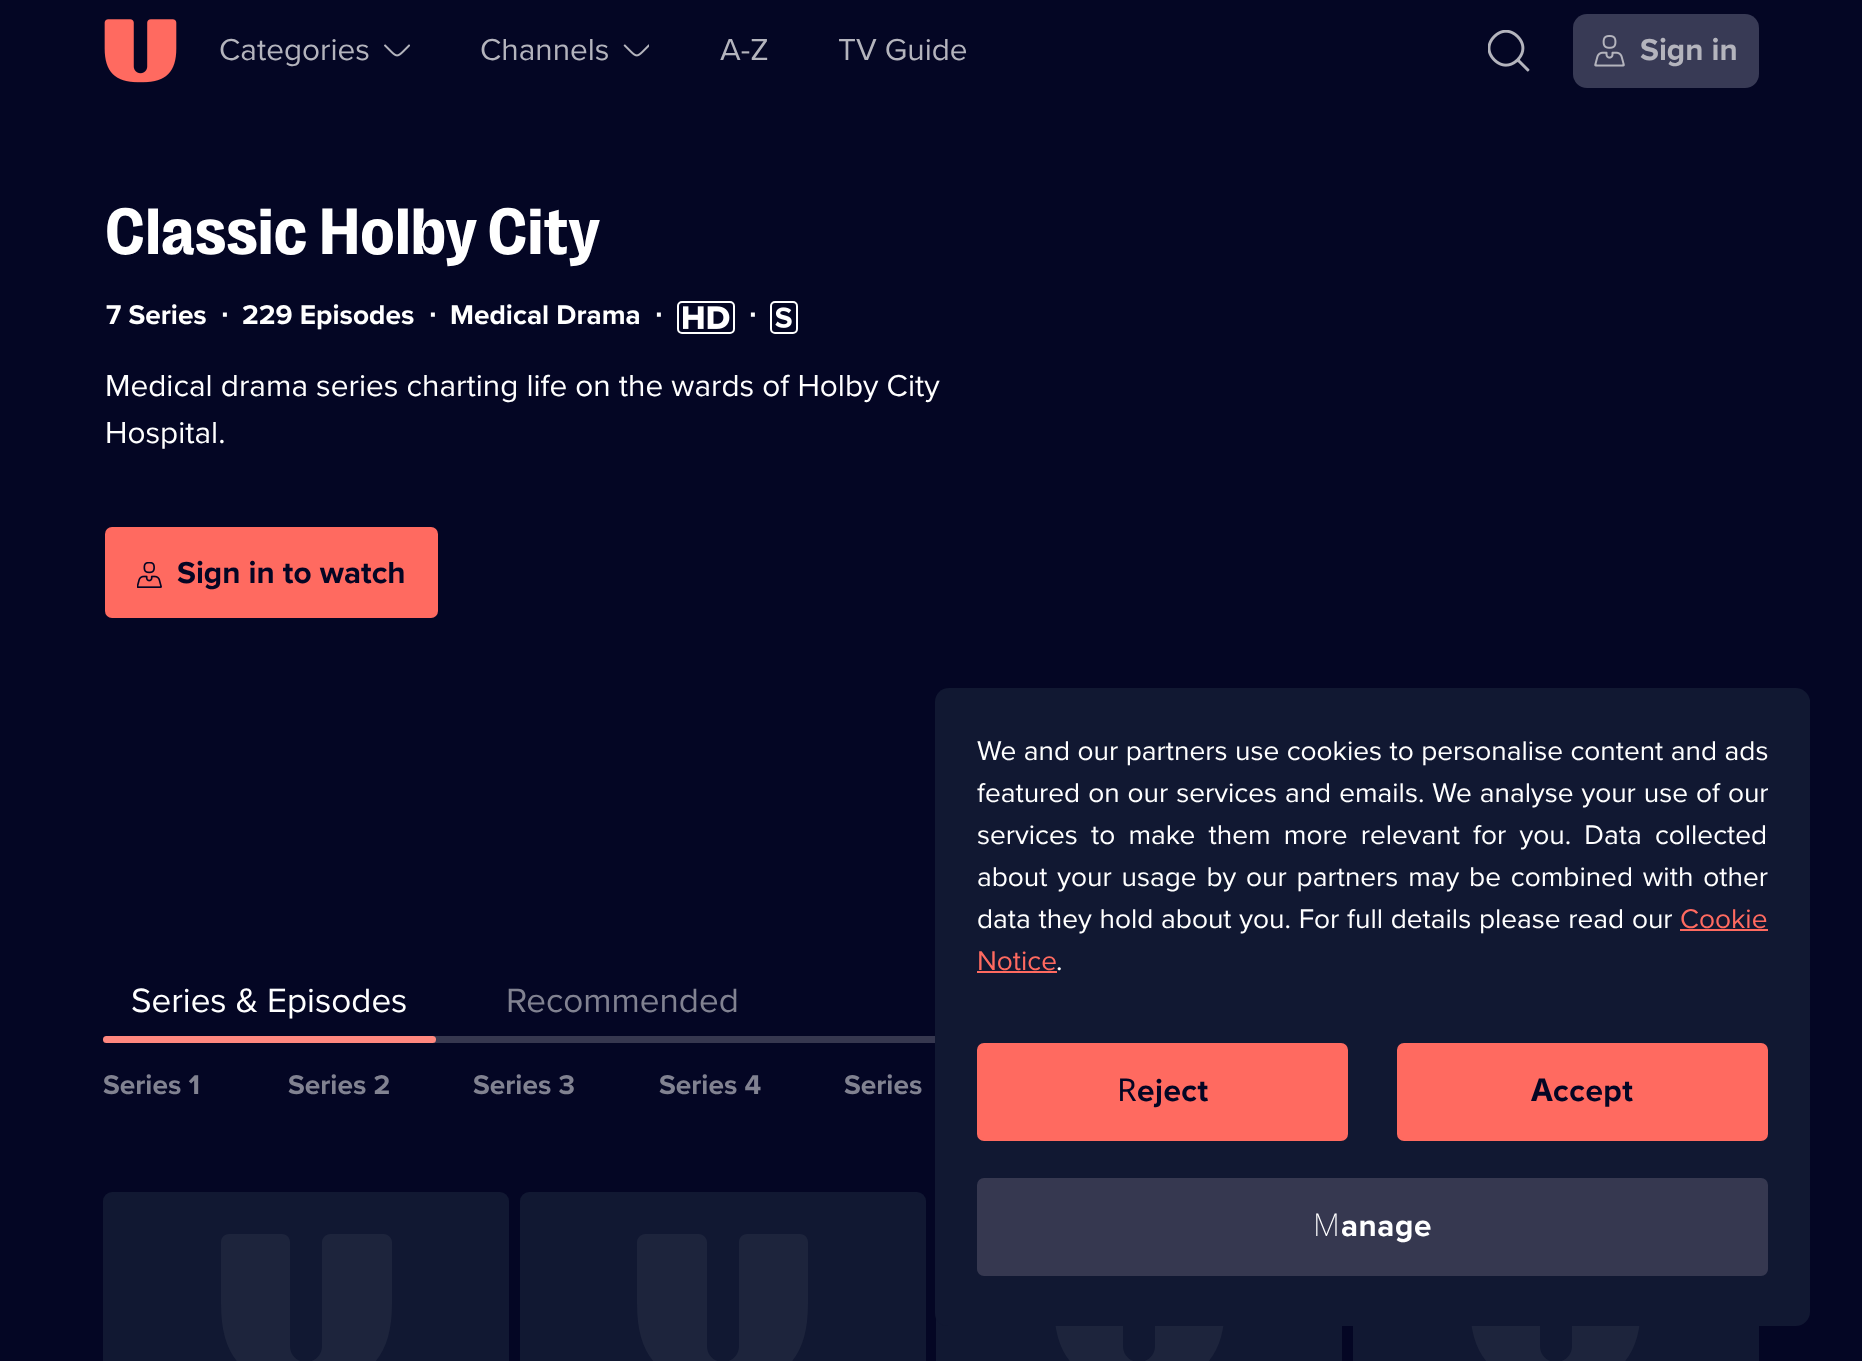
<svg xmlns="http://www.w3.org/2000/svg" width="1862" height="1361">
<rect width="100%" height="100%" fill="#040624"/>
<image x="104" y="19" width="73" height="64" href="media/1.png"/>
<text x="219" y="60" style="font-family:Proxima Nova;font-size:31.5px;fill:#b4b4bd">Categories</text>
<image x="384" y="44" width="26" height="13" href="media/2.png"/>
<text x="480" y="60" style="font-family:Proxima Nova;font-size:31.5px;fill:#b4b4bd">Channels</text>
<image x="623" y="44" width="26" height="13" href="media/3.png"/>
<text x="720" y="60" style="font-family:Proxima Nova;font-size:31.5px;fill:#b4b4bd">A-Z</text>
<text x="838" y="60" style="font-family:Proxima Nova;font-size:31.5px;fill:#b4b4bd">TV Guide</text>
<image x="1488" y="30" width="42" height="42" href="media/4.png"/>
<rect x="1573" y="14" width="186" height="74" rx="14" fill="#383a55"/>
<image x="1594" y="35" width="31" height="32" href="media/5.png"/>
<text x="1640" y="60" style="font-family:Proxima Nova;font-size:31.5px;font-weight:bold;fill:#b4b4bd">Sign in</text>
<text x="105" y="254" style="font-family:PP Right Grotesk;font-size:66.5px;font-weight:bold;fill:#fff">Classic Holby City</text>
<text x="106" y="324" style="font-family:Proxima Nova;font-size:28px;font-weight:bold;fill:#fff">7 Series</text>
<text x="221" y="324" style="font-family:Liberation Sans;font-size:28px;font-weight:bold;fill:#fff">∙</text>
<text x="242" y="324" style="font-family:Proxima Nova;font-size:28px;font-weight:bold;fill:#fff">229 Episodes</text>
<text x="429" y="324" style="font-family:Liberation Sans;font-size:28px;font-weight:bold;fill:#fff">∙</text>
<text x="450" y="324" style="font-family:Proxima Nova;font-size:28px;font-weight:bold;fill:#fff">Medical Drama</text>
<text x="655" y="324" style="font-family:Liberation Sans;font-size:28px;font-weight:bold;fill:#fff">∙</text>
<rect x="678" y="302" width="56" height="31" rx="4" fill="none" stroke="#fff" stroke-width="2"/>
<image x="683" y="306" width="47" height="23" href="media/6.png"/>
<text x="749" y="324" style="font-family:Liberation Sans;font-size:28px;font-weight:bold;fill:#fff">∙</text>
<rect x="771" y="302" width="26" height="31" rx="4" fill="none" stroke="#fff" stroke-width="2"/>
<image x="775" y="307" width="17" height="21" href="media/7.png"/>
<text x="105" y="396" style="font-family:Proxima Nova;font-size:31.5px;fill:#fff">Medical drama series charting life on the wards of Holby City</text>
<text x="105" y="443" style="font-family:Proxima Nova;font-size:31.5px;fill:#fff">Hospital.</text>
<rect x="105" y="527" width="333" height="91" rx="7" fill="#ff6a60"/>
<image x="137" y="562" width="25" height="26" href="media/8.png"/>
<text x="177" y="583" style="font-family:Proxima Nova;font-size:31.5px;font-weight:bold;fill:#040624">Sign in to watch</text>
<text x="131" y="1012" style="font-family:Proxima Nova;font-size:35px;fill:#fff">Series &amp; Episodes</text>
<rect x="103" y="1036" width="333" height="7" rx="3.5" fill="#ff6a60"/>
<text x="506" y="1012" style="font-family:Proxima Nova;font-size:35px;fill:#818291">Recommended</text>
<rect x="103" y="1036" width="1656" height="7" rx="3.5" fill="#ffffff33"/>
<text x="103" y="1094" style="font-family:Proxima Nova;font-size:28px;font-weight:bold;fill:#818291">Series 1</text>
<text x="288" y="1094" style="font-family:Proxima Nova;font-size:28px;font-weight:bold;fill:#818291">Series 2</text>
<text x="473" y="1094" style="font-family:Proxima Nova;font-size:28px;font-weight:bold;fill:#818291">Series 3</text>
<text x="659" y="1094" style="font-family:Proxima Nova;font-size:28px;font-weight:bold;fill:#818291">Series 4</text>
<text x="844" y="1094" style="font-family:Proxima Nova;font-size:28px;font-weight:bold;fill:#818291">Series</text>
<rect x="103" y="1192" width="406" height="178" rx="9" fill="#111832"/>
<path d="M229 1234h53c5 0 8 4 8 8v104c0 9 7 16 16 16c9 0 16-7 16-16v-104c0-4 4-8 8-8h54c4 0 8 4 8 8v62c0 55-25 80-80 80h-11c-56 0-80-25-80-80v-62c0-4 3-8 8-8z" fill="#1d243c"/>
<rect x="520" y="1192" width="406" height="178" rx="9" fill="#111832"/>
<path d="M645 1234h54c4 0 8 4 8 8v104c0 9 7 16 16 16c9 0 16-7 16-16v-104c0-4 3-8 8-8h53c5 0 8 4 8 8v62c0 55-24 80-80 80h-11c-55 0-80-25-80-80v-62c0-4 4-8 8-8z" fill="#1d243c"/>
<rect x="936" y="1318" width="406" height="43" fill="#111832"/>
<path d="M1062 1234h53c5 0 8 4 8 8v104c0 9 7 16 16 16c9 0 16-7 16-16v-104c0-4 4-8 8-8h54c4 0 8 4 8 8v62c0 55-25 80-80 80h-11c-56 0-80-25-80-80v-62c0-4 3-8 8-8z" fill="#1d243c"/>
<rect x="1353" y="1326" width="406" height="35" fill="#111832"/>
<path d="M1478 1234h54c4 0 8 4 8 8v104c0 9 7 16 16 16c9 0 16-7 16-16v-104c0-4 3-8 8-8h53c5 0 8 4 8 8v62c0 55-24 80-80 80h-11c-55 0-80-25-80-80v-62c0-4 4-8 8-8z" fill="#1d243c"/>
<path d="M949 688h847c6 0 11 4 13 9l1 3v612c0 8-7 14-14 14h-848c-3 0-7-1-9-3c-3-3-4-6-4-10v-611c0-8 6-14 14-14z" fill="#111832"/>
<text x="977" y="760" word-spacing="0.25" style="font-family:Proxima Nova;font-size:28px;fill:#fff">We and our partners use cookies to personalise content and ads</text>
<text x="977" y="802" word-spacing="0.75" style="font-family:Proxima Nova;font-size:28px;fill:#fff">featured on our services and emails. We analyse your use of our</text>
<text x="977" y="844" word-spacing="6" style="font-family:Proxima Nova;font-size:28px;fill:#fff">services to make them more relevant for you. Data collected</text>
<text x="977" y="886" word-spacing="2.6" style="font-family:Proxima Nova;font-size:28px;fill:#fff">about your usage by our partners may be combined with other</text>
<text x="977" y="928" word-spacing="0.5" style="font-family:Proxima Nova;font-size:28px;fill:#fff">data they hold about you. For full details please read our</text>
<text x="1680" y="928" style="font-family:Proxima Nova;font-size:28px;fill:#ff6a60">Cookie</text>
<rect x="1680" y="929" width="88" height="2" fill="#ff6a60"/>
<text x="977" y="970" style="font-family:Proxima Nova;font-size:28px;fill:#ff6a60">Notice</text>
<rect x="977" y="971" width="80" height="2" fill="#ff6a60"/>
<text x="1056" y="970" style="font-family:Proxima Nova;font-size:28px;fill:#fff">.</text>
<rect x="978" y="1044" width="369" height="96" rx="6" fill="#ff6a60" stroke="#ff6a60" stroke-width="2"/>
<text x="1117" y="1101" style="font-family:Noto Sans;font-size:31.5px;letter-spacing:0.5px;fill:#040624">R</text>
<text x="1137" y="1101" style="font-family:Proxima Nova;font-size:31.5px;font-weight:bold;letter-spacing:0.5px;fill:#040624">eject</text>
<rect x="1398" y="1044" width="369" height="96" rx="6" fill="#ff6a60" stroke="#ff6a60" stroke-width="2"/>
<text x="1531" y="1101" style="font-family:Noto Sans;font-size:31.5px;font-weight:bold;letter-spacing:0.5px;fill:#040624">A</text>
<text x="1553" y="1101" style="font-family:Proxima Nova;font-size:31.5px;font-weight:bold;letter-spacing:0.5px;fill:#040624">ccept</text>
<rect x="977" y="1178" width="791" height="98" rx="7" fill="#363850"/>
<text x="1313" y="1236" style="font-family:Noto Sans;font-size:31.5px;font-weight:200;letter-spacing:0.5px;fill:#fff">M</text>
<text x="1341" y="1236" style="font-family:Proxima Nova;font-size:31.5px;font-weight:bold;letter-spacing:0.5px;fill:#fff">anage</text>
</svg>
